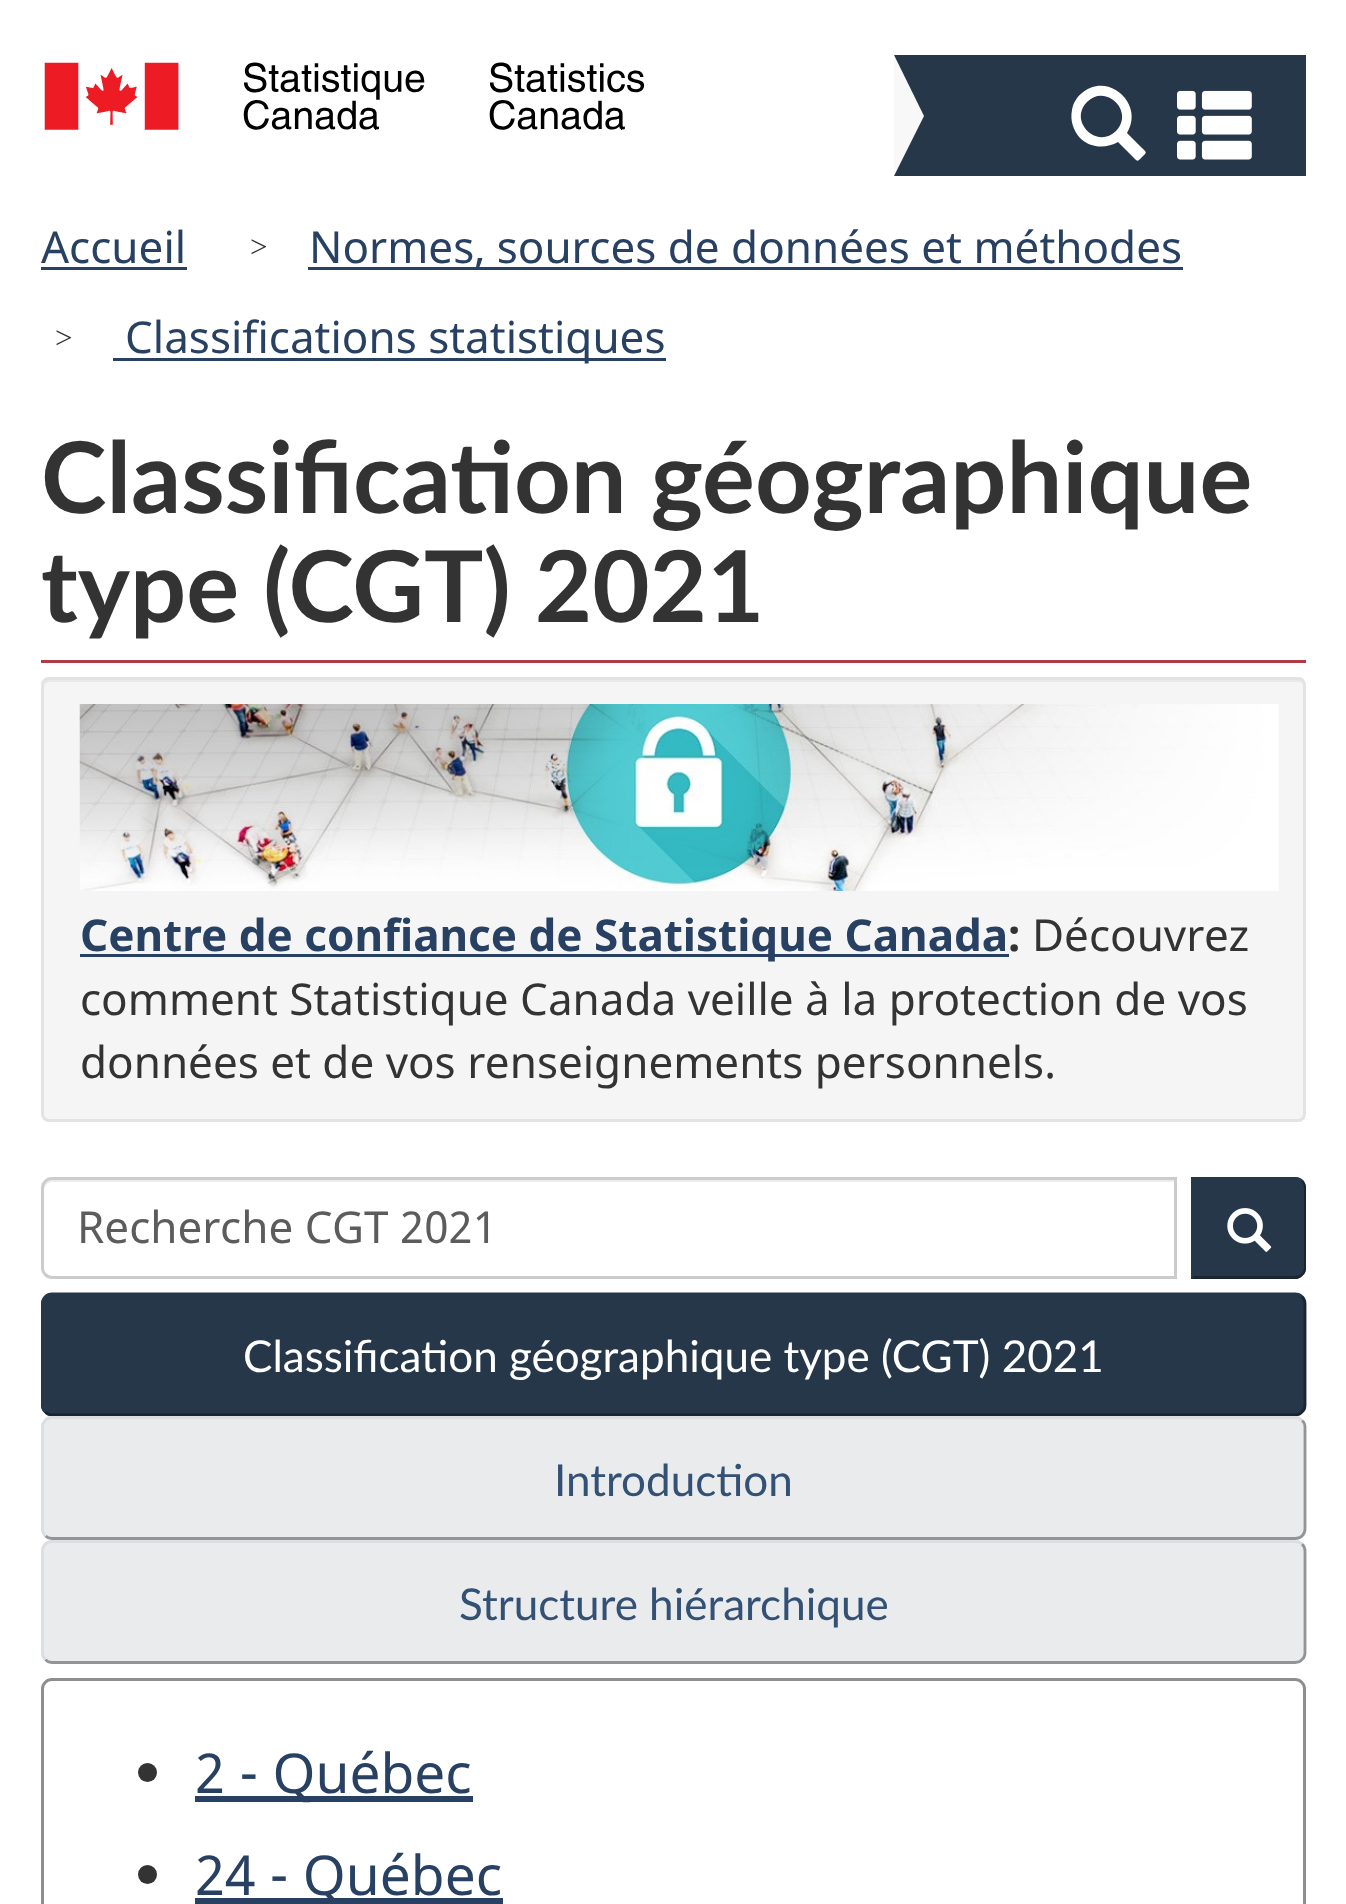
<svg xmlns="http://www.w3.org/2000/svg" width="1346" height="1904">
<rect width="100%" height="100%" fill="#fff"/>
<image x="44" y="62" width="601" height="68" href="media/1.png"/>
<rect x="894" y="55" width="412" height="121" fill="#26374a"/>
<path d="M894 176v-121l30 61z" fill="#f8f8f8"/>
<path d="M1080 138c-7-8-10-18-8-28c1-7 5-13 10-17c26-22 63 11 45 40l15 15c5 5 5 4 0 9c-5 5-4 5-9 0l-15-15c-12 7-28 6-38-4zm7-36c-19 19 10 48 29 29c19-19-10-48-29-29z" fill="#fff"/>
<image x="1177" y="90" width="75" height="70" href="media/2.png"/>
<text x="41" y="263" style="font-family:Noto Sans;font-size:44px;fill:#284162">Accueil</text>
<rect x="41" y="267" width="146" height="3" fill="#284162"/>
<text x="250" y="257" style="font-family:Liberation Serif;font-size:31px;fill:#333">&gt;</text>
<rect x="308" y="267" width="875" height="3" fill="#284162"/>
<text x="309" y="263" style="font-family:Noto Sans;font-size:44px;fill:#284162">Normes, sources de données et méthodes</text>
<text x="55" y="348" style="font-family:Liberation Serif;font-size:31px;fill:#333">&gt;</text>
<rect x="113" y="358" width="553" height="3" fill="#284162"/>
<text x="125" y="353" style="font-family:Noto Sans;font-size:44px;fill:#284162">Classifications statistiques</text>
<rect x="41" y="660" width="1265" height="3" fill="#af3c43"/>
<text x="41" y="513" style="font-family:Lato;font-size:99px;font-weight:bold;fill:#333">Classification géographique</text>
<text x="41" y="622" style="font-family:Lato;font-size:99px;font-weight:bold;fill:#333">type (CGT) 2021</text>
<rect x="41" y="677" width="1265" height="445" rx="8" fill="#f5f5f5"/>
<path d="M50 682h1248c3 0 6 2 6 6v-3c0-3-3-6-6-6h-1248c-3 0-6 3-6 6v3c0-4 2-6 6-6z" fill="#e9e9e9"/>
<rect x="42.5" y="678.5" width="1262" height="442" rx="6.5" fill="none" stroke="#e3e3e3" stroke-width="3"/>
<image x="79" y="704" width="1200" height="187" href="media/3.png"/>
<rect x="80" y="954" width="929" height="3" fill="#284162"/>
<text x="80" y="951" style="font-family:Noto Sans;font-size:44px;font-weight:bold;fill:#284162">Centre de confiance de Statistique Canada</text>
<text x="1008" y="951" style="font-family:Noto Sans;font-size:44px;font-weight:bold;fill:#333">:</text>
<text x="1032" y="951" style="font-family:Noto Sans;font-size:44px;fill:#333">Découvrez</text>
<text x="80" y="1015" style="font-family:Noto Sans;font-size:44px;fill:#333">comment Statistique Canada veille à la protection de vos</text>
<text x="80" y="1078" style="font-family:Noto Sans;font-size:44px;fill:#333">données et de vos renseignements personnels.</text>
<path d="M52 1182h1122v-2h-1122c-4 0-8 4-8 8v3c0-5 4-9 8-9z" fill="#ececec"/>
<path d="M52 1178.5h1123.5v99h-1123.5c-5 0-9.5-4.5-9.5-9.5v-80c0-5 4.5-9.5 9.5-9.5z" fill="none" stroke="#ccc" stroke-width="3"/>
<text x="77" y="1243" style="font-family:Noto Sans;font-size:44px;fill:#5c5c5c">Recherche CGT 2021</text>
<path d="M1191 1177h104c6 0 11 5 11 11v80c0 6-5 11-11 11h-104z" fill="#26374a"/>
<path d="M1191 1177l3 3h101c2 0 5 1 6 2l2-2c-2-2-5-3-8-3z" fill="#26374a"/>
<path d="M1303 1180c2 2 3 5 3 8v80c0 3-1 6-3 7l-2-1c2-2 3-4 3-6v-80c0-3-1-5-3-6z" fill="#192531"/>
<path d="M1191 1279l3-3h101c2 0 5-1 6-2l2 1c-2 2-3 3-6 4z" fill="#192531"/>
<path d="M1191 1177v101l3-2v-96z" fill="#26374a"/>
<image x="1227" y="1208" width="45" height="44" href="media/4.png"/>
<rect x="41" y="1293" width="1265" height="123" rx="11" fill="#26374a"/>
<path d="M1302 1296.5c2 2 3 4.5 3 7v101.5c0 3-1 5.5-3 7c-1.5 2-4 3-7 3h-1243c-2.5 0-5-1-6.5-3" fill="none" stroke="#192531" stroke-width="2.8"/>
<path d="M45.5 1412c-2-1.5-3-4-3-7v-101.5c0-2.5 1-5 3-7c1.5-1.5 4-2.5 6.5-2.5h1243c3 0 5.5 1 7 2.5" fill="none" stroke="#26374a" stroke-width="2.8"/>
<text x="243" y="1372" style="font-family:Lato;font-size:44px;fill:#fff">Classification géographique type (CGT) 2021</text>
<rect x="41" y="1416" width="1265" height="124" rx="11" fill="#eaebed"/>
<path d="M1302 1420.5c2 1.5 3 4 3 6.5v102c0 2.5-1 5-3 7c-1.5 1.5-4 2.5-7 2.5h-1243c-2.5 0-5-1-6.5-2.5" fill="none" stroke="#939496" stroke-width="2.8"/>
<path d="M45.5 1536c-2-2-3-4.5-3-7v-102c0-2.5 1-5 3-6.5c1.5-2 4-3 6.5-3h1243c3 0 5.5 1 7 3" fill="none" stroke="#dcdee1" stroke-width="2.8"/>
<text x="554" y="1496" style="font-family:Lato;font-size:44px;fill:#335075">Introduction</text>
<rect x="41" y="1540" width="1265" height="124" rx="11" fill="#eaebed"/>
<path d="M1302 1544c2 2 3 4.5 3 7v102c0 2.5-1 5-3 6.5c-1.5 2-4 3-7 3h-1243c-2.5 0-5-1-6.5-3" fill="none" stroke="#939496" stroke-width="2.8"/>
<path d="M45.5 1659.5c-2-1.5-3-4-3-6.5v-102c0-2.5 1-5 3-7c1.5-1.5 4-2.5 6.5-2.5h1243c3 0 5.5 1 7 2.5" fill="none" stroke="#dcdee1" stroke-width="2.8"/>
<text x="459" y="1620" style="font-family:Lato;font-size:44px;fill:#335075">Structure hiérarchique</text>
<rect x="42.5" y="1679.5" width="1262" height="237" rx="9.5" fill="none" stroke="#8e8e8e" stroke-width="3"/>
<circle cx="147.5" cy="1772.5" r="9.5" fill="#333"/>
<rect x="195" y="1796" width="278" height="6" fill="#284162"/>
<text x="195" y="1793" style="font-family:Noto Sans;font-size:55px;fill:#284162">2 - Québec</text>
<circle cx="147.5" cy="1874.5" r="9.5" fill="#333"/>
<rect x="195" y="1898" width="308" height="6" fill="#284162"/>
<text x="195" y="1895" style="font-family:Noto Sans;font-size:55px;fill:#284162">24 - Québec</text>
</svg>
